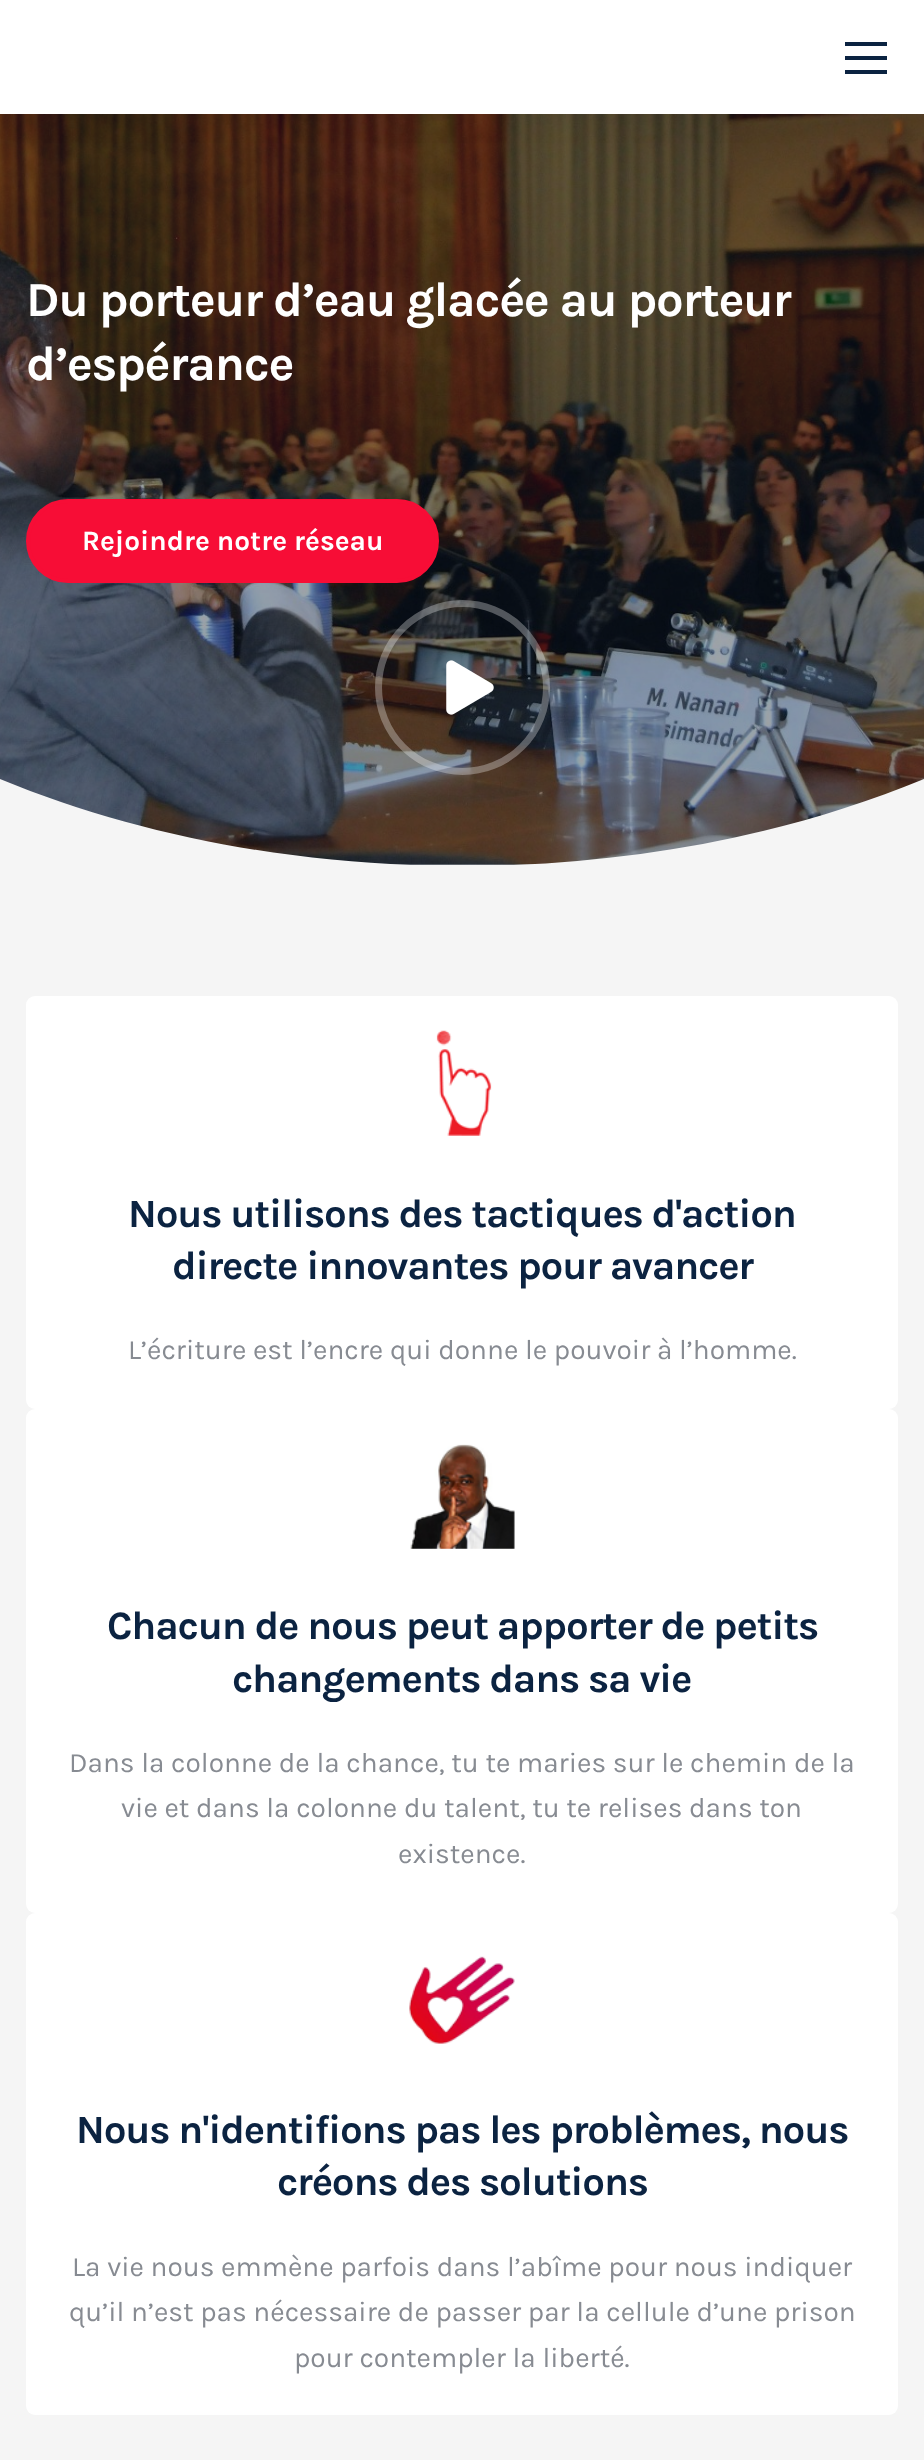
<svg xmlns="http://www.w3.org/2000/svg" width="924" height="2460">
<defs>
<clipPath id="clip1"><rect y="779" width="924" height="86"/></clipPath>
</defs>
<rect width="100%" height="100%" fill="#f5f5f5"/>
<rect x="389" y="864" width="146" height="1" fill="#979da4"/>
<image x="0" y="114" width="924" height="751" href="media/1.png"/>
<rect width="924" height="114" fill="#0000000d" filter="blur(17.5px)"/>
<rect width="924" height="114" fill="#fff"/>
<rect x="845" y="70" width="42" height="4" fill="#0b2341"/>
<rect x="845" y="42" width="42" height="4" fill="#0b2341"/>
<rect x="845" y="56" width="42" height="4" fill="#0b2341"/>
<text x="26" y="316" style="font-family:Karla;font-size:49px;font-weight:bold;letter-spacing:-1.3px;fill:#fff">Du porteur d’eau glacée au porteur</text>
<text x="26" y="380" style="font-family:Karla;font-size:49px;font-weight:bold;letter-spacing:-1.3px;fill:#fff">d’espérance</text>
<rect x="28" y="501" width="409" height="80" rx="40" fill="#f70d36" stroke="#f70d36" stroke-width="4"/>
<text x="82" y="550" style="font-family:Karla;font-size:28px;font-weight:bold;fill:#fff">Rejoindre notre réseau</text>
<circle cx="462.5" cy="687.5" r="84" fill="none" stroke="#ffffff4d" stroke-width="7"/>
<image x="446" y="660" width="48" height="55" href="media/2.png"/>
<g clip-path="url(#clip1)">
<path d="M0 866v-87c280 116 644 116 924 0v87z" fill="#f5f5f5"/>
</g>
<rect x="26" y="996" width="872" height="413" rx="9" fill="#fff"/>
<image x="436" y="1030" width="56" height="106" href="media/3.png"/>
<text x="128" y="1227" style="font-family:Karla;font-size:40.25px;font-weight:bold;letter-spacing:-1.2px;fill:#0b2341">Nous utilisons des tactiques d'action</text>
<text x="172" y="1279" style="font-family:Karla;font-size:40.25px;font-weight:bold;letter-spacing:-1.2px;fill:#0b2341">directe innovantes pour avancer</text>
<text x="128" y="1359" style="font-family:Karla;font-size:28px;fill:#878b92">L’écriture est l’encre qui donne le pouvoir à l’homme.</text>
<rect x="26" y="1409" width="872" height="504" rx="9" fill="#fff"/>
<image x="410" y="1444" width="105" height="105" href="media/4.png"/>
<text x="107" y="1639" style="font-family:Karla;font-size:40.25px;font-weight:bold;letter-spacing:-1.2px;fill:#0b2341">Chacun de nous peut apporter de petits</text>
<text x="232" y="1692" style="font-family:Karla;font-size:40.25px;font-weight:bold;letter-spacing:-1.2px;fill:#0b2341">changements dans sa vie</text>
<text x="69" y="1772" style="font-family:Karla;font-size:28px;fill:#878b92">Dans la colonne de la chance, tu te maries sur le chemin de la</text>
<text x="121" y="1817" style="font-family:Karla;font-size:28px;fill:#878b92">vie et dans la colonne du talent, tu te relises dans ton</text>
<text x="398" y="1863" style="font-family:Karla;font-size:28px;fill:#878b92">existence.</text>
<rect x="26" y="1913" width="872" height="502" rx="9" fill="#fff"/>
<image x="409" y="1956" width="106" height="88" href="media/5.png"/>
<text x="76" y="2143" style="font-family:Karla;font-size:40.25px;font-weight:bold;letter-spacing:-1.2px;fill:#0b2341">Nous n'identifions pas les problèmes, nous</text>
<text x="277" y="2195" style="font-family:Karla;font-size:40.25px;font-weight:bold;letter-spacing:-1.2px;fill:#0b2341">créons des solutions</text>
<text x="72" y="2276" style="font-family:Karla;font-size:28px;fill:#878b92">La vie nous emmène parfois dans l’abîme pour nous indiquer</text>
<text x="69" y="2321" style="font-family:Karla;font-size:28px;fill:#878b92">qu’il n’est pas nécessaire de passer par la cellule d’une prison</text>
<text x="294" y="2367" style="font-family:Karla;font-size:28px;fill:#878b92">pour contempler la liberté.</text>
</svg>
